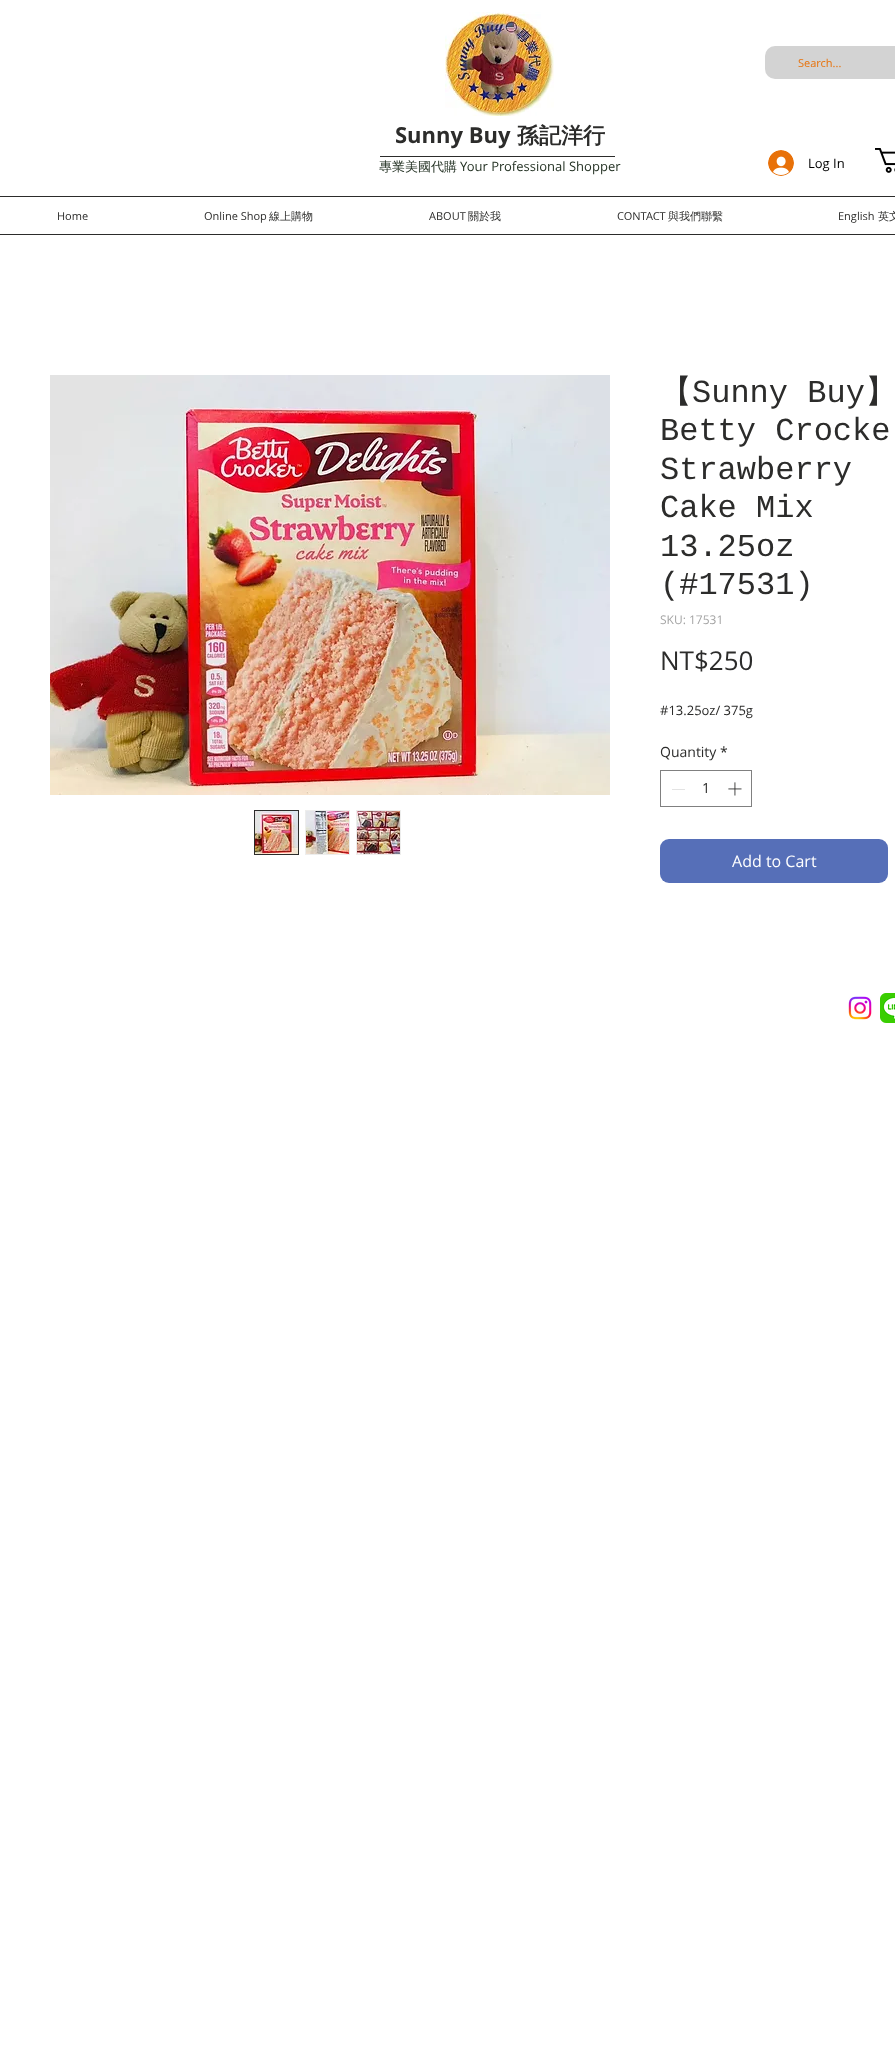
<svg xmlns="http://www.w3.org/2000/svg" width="895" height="2049">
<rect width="100%" height="100%" fill="#fff"/>
<image x="445" y="12" width="109" height="104" href="media/1.png"/>
<rect x="765" y="46" width="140" height="33" rx="10" fill="#d3d3d3"/>
<text x="798" y="67" style="font-family:Open Sans;font-size:11px;fill:#e87109">Search...</text>
<text x="395" y="143" style="font-family:Open Sans;font-size:22px;font-weight:bold;fill:#2c2c2b">Sunny Buy</text>
<text x="517" y="143" style="font-family:WenQuanYi Zen Hei;font-size:22px;font-weight:bold;fill:#2c2c2b">孫記洋行</text>
<rect x="380" y="156" width="235" height="1" fill="#2c2c2b"/>
<image x="875" y="148" width="20" height="25" href="media/2.png"/>
<text x="379" y="171" style="font-family:WenQuanYi Zen Hei;font-size:13px;font-weight:500;fill:#253325">專業美國代購</text>
<text x="460" y="171" style="font-family:Open Sans;font-size:13px;fill:#253325">Your Professional Shopper</text>
<image x="768" y="150" width="26" height="26" href="media/3.png"/>
<text x="808" y="168" style="font-family:Open Sans;font-size:13px;fill:#000">Log In</text>
<rect y="196" width="895" height="1" fill="#2c2c2b"/>
<rect y="234" width="895" height="1" fill="#2c2c2b"/>
<text x="57" y="220" style="font-family:Open Sans;font-size:11px;fill:#2c2c2b">Home</text>
<text x="204" y="220" style="font-family:Open Sans;font-size:11px;fill:#2c2c2b">Online Shop</text>
<text x="269" y="220" style="font-family:WenQuanYi Zen Hei;font-size:11px;font-weight:500;fill:#2c2c2b">線上購物</text>
<text x="429" y="220" style="font-family:Open Sans;font-size:11px;fill:#2c2c2b">ABOUT</text>
<text x="468" y="220" style="font-family:WenQuanYi Zen Hei;font-size:11px;font-weight:500;fill:#2c2c2b">關於我</text>
<text x="617" y="220" style="font-family:Open Sans;font-size:11px;fill:#2c2c2b">CONTACT</text>
<text x="668" y="220" style="font-family:WenQuanYi Zen Hei;font-size:11px;font-weight:500;fill:#2c2c2b">與我們聯繫</text>
<text x="838" y="220" style="font-family:Open Sans;font-size:11px;fill:#2c2c2b">English</text>
<text x="878" y="220" style="font-family:WenQuanYi Zen Hei;font-size:11px;font-weight:500;fill:#2c2c2b">英文</text>
<image x="50" y="375" width="560" height="420" href="media/4.png"/>
<rect x="254.5" y="810.5" width="44" height="44" fill="none" stroke="#2c2c2b"/>
<image x="255" y="811" width="43" height="43" href="media/5.png"/>
<rect x="305" y="810" width="45" height="45" fill="#ededec"/>
<image x="306" y="811" width="43" height="43" href="media/6.png"/>
<rect x="356" y="810" width="45" height="45" fill="#ededec"/>
<image x="357" y="811" width="43" height="43" href="media/7.png"/>
<text x="660" y="402" style="font-family:WenQuanYi Zen Hei;font-size:32px;font-weight:500;fill:#2c2c2b">【</text>
<text x="692" y="402" style="font-family:Liberation Mono;font-size:32px;fill:#2c2c2b">Sunny Buy</text>
<text x="865" y="402" style="font-family:WenQuanYi Zen Hei;font-size:32px;font-weight:500;fill:#2c2c2b">】</text>
<text x="660" y="440" style="font-family:Liberation Mono;font-size:32px;fill:#2c2c2b">Betty Crocke</text>
<text x="660" y="479" style="font-family:Liberation Mono;font-size:32px;fill:#2c2c2b">Strawberry</text>
<text x="660" y="517" style="font-family:Liberation Mono;font-size:32px;fill:#2c2c2b">Cake Mix</text>
<text x="660" y="556" style="font-family:Liberation Mono;font-size:32px;fill:#2c2c2b">13.25oz</text>
<text x="660" y="594" style="font-family:Liberation Mono;font-size:32px;fill:#2c2c2b">(#17531)</text>
<text x="660" y="624" style="font-family:Open Sans;font-size:12px;fill:#a4a4a4">SKU: 17531</text>
<text x="660" y="670" style="font-family:Open Sans;font-size:26px;fill:#2c2c2b">NT$250</text>
<text x="660" y="715" style="font-family:Open Sans;font-size:13px;fill:#2c2c2b">#13.25oz/ 375g</text>
<text x="660" y="757" style="font-family:Open Sans;font-size:14px;fill:#2c2c2b">Quantity</text>
<text x="720" y="757" style="font-family:Open Sans;font-size:14px;fill:#2c2c2b">*</text>
<rect x="660.5" y="770.5" width="91" height="36" fill="none" stroke="#808080"/>
<rect x="672" y="789" width="13" height="1" fill="#e3e3e3"/>
<text x="702" y="793" style="font-family:Open Sans;font-size:14px;fill:#2c2c2b">1</text>
<image x="728" y="782" width="14" height="14" href="media/8.png"/>
<rect x="660" y="839" width="228" height="44" rx="9" fill="#566fb8"/>
<text x="732" y="867" style="font-family:Open Sans;font-size:16px;fill:#fff">Add to Cart</text>
<image x="848" y="996" width="24" height="24" href="media/9.png"/>
<image x="880" y="993" width="15" height="30" href="media/10.png"/>
</svg>
